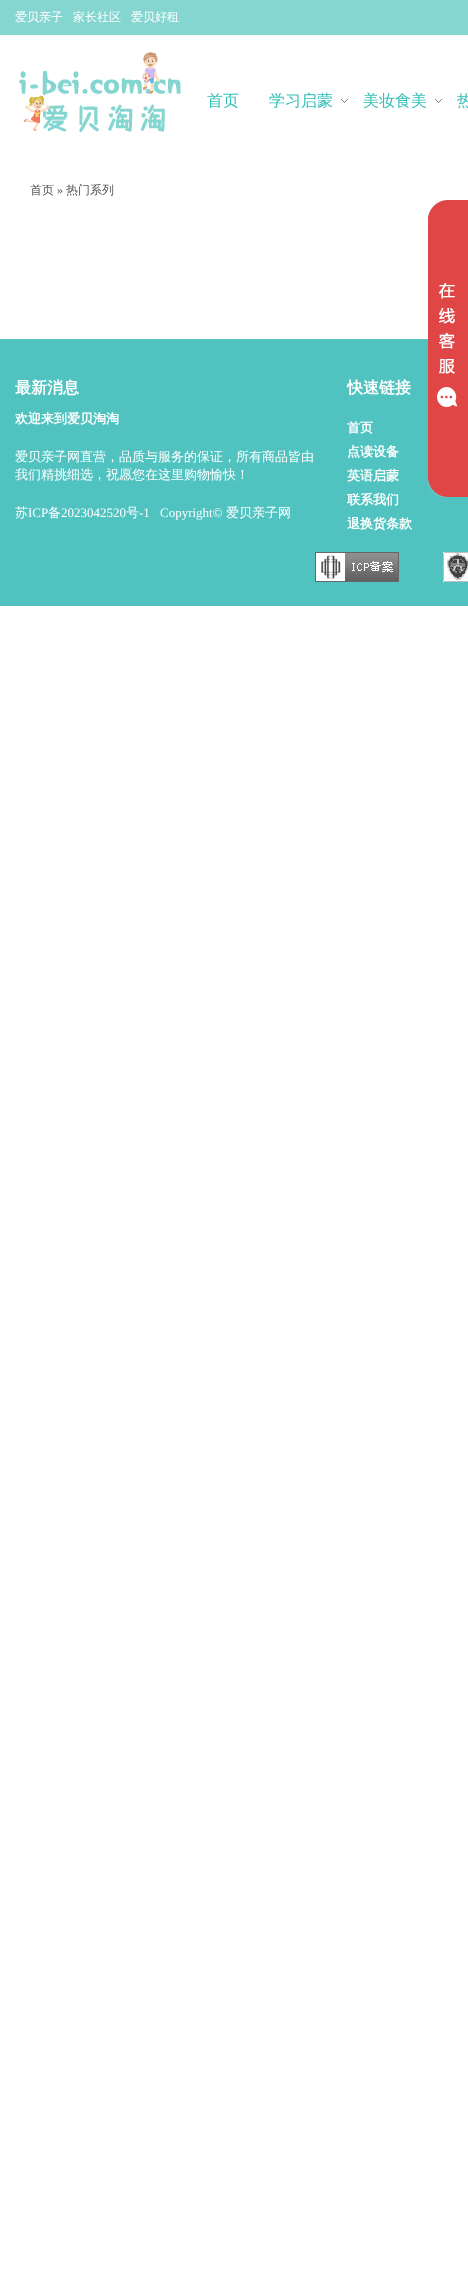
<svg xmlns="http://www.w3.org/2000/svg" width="468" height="2286">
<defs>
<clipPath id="clip1"><rect x="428" y="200" width="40" height="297"/></clipPath>
</defs>
<rect width="100%" height="100%" fill="#fff"/>
<rect width="468" height="35" fill="#85d5d0"/>
<text x="15" y="21" style="font-family:WenQuanYi Zen Hei;font-size:12px;font-weight:500;fill:#fff">爱贝亲子</text>
<text x="73" y="21" style="font-family:WenQuanYi Zen Hei;font-size:12px;font-weight:500;fill:#fff">家长社区</text>
<text x="131" y="21" style="font-family:WenQuanYi Zen Hei;font-size:12px;font-weight:500;fill:#fff">爱贝好租</text>
<image x="19" y="52" width="162" height="81" href="media/1.png"/>
<text x="207" y="106" style="font-family:WenQuanYi Zen Hei;font-size:16px;font-weight:500;fill:#35bfb7">首页</text>
<image x="341" y="99" width="7" height="4" href="media/2.png"/>
<text x="269" y="106" style="font-family:WenQuanYi Zen Hei;font-size:16px;font-weight:500;fill:#35bfb7">学习启蒙</text>
<image x="435" y="99" width="7" height="4" href="media/2.png"/>
<text x="363" y="106" style="font-family:WenQuanYi Zen Hei;font-size:16px;font-weight:500;fill:#35bfb7">美妆食美</text>
<text x="457" y="106" style="font-family:WenQuanYi Zen Hei;font-size:16px;font-weight:500;fill:#35bfb7">热</text>
<text x="30" y="194" style="font-family:WenQuanYi Zen Hei;font-size:12px;font-weight:500;fill:#545454">首页</text>
<text x="57" y="194" style="font-family:Liberation Serif;font-size:12px;fill:#545454">»</text>
<text x="66" y="194" style="font-family:WenQuanYi Zen Hei;font-size:12px;font-weight:500;fill:#545454">热门系列</text>
<rect y="339" width="468" height="267" fill="#50c3c0"/>
<text x="15" y="393" style="font-family:WenQuanYi Zen Hei;font-size:16px;font-weight:bold;fill:#fff">最新消息</text>
<text x="15" y="423" style="font-family:WenQuanYi Zen Hei;font-size:13px;font-weight:bold;fill:#fff">欢迎来到爱贝淘淘</text>
<text x="15" y="461" style="font-family:WenQuanYi Zen Hei;font-size:13px;font-weight:500;fill:#fff">爱贝亲子网直营，品质与服务的保证，所有商品皆由</text>
<text x="15" y="479" style="font-family:WenQuanYi Zen Hei;font-size:13px;font-weight:500;fill:#fff">我们精挑细选，祝愿您在这里购物愉快！</text>
<text x="15" y="517" style="font-family:WenQuanYi Zen Hei;font-size:13px;font-weight:500;fill:#fff">苏</text>
<text x="28" y="517" style="font-family:Liberation Serif;font-size:13px;fill:#fff">ICP</text>
<text x="48" y="517" style="font-family:WenQuanYi Zen Hei;font-size:13px;font-weight:500;fill:#fff">备</text>
<text x="61" y="517" style="font-family:Liberation Serif;font-size:13px;fill:#fff">2023042520</text>
<text x="126" y="517" style="font-family:WenQuanYi Zen Hei;font-size:13px;font-weight:500;fill:#fff">号</text>
<text x="139" y="517" style="font-family:Liberation Serif;font-size:13px;fill:#fff">-1</text>
<text x="160" y="517" style="font-family:Liberation Serif;font-size:13px;fill:#fff">Copyright©</text>
<text x="226" y="517" style="font-family:WenQuanYi Zen Hei;font-size:13px;font-weight:500;fill:#fff">爱贝亲子网</text>
<text x="347" y="393" style="font-family:WenQuanYi Zen Hei;font-size:16px;font-weight:bold;fill:#fff">快速链接</text>
<text x="347" y="432" style="font-family:WenQuanYi Zen Hei;font-size:13px;font-weight:bold;fill:#fff">首页</text>
<text x="347" y="456" style="font-family:WenQuanYi Zen Hei;font-size:13px;font-weight:bold;fill:#fff">点读设备</text>
<text x="347" y="480" style="font-family:WenQuanYi Zen Hei;font-size:13px;font-weight:bold;fill:#fff">英语启蒙</text>
<text x="347" y="504" style="font-family:WenQuanYi Zen Hei;font-size:13px;font-weight:bold;fill:#fff">联系我们</text>
<text x="347" y="528" style="font-family:WenQuanYi Zen Hei;font-size:13px;font-weight:bold;fill:#fff">退换货条款</text>
<image x="315" y="552" width="84" height="30" href="media/3.png"/>
<image x="443" y="552" width="25" height="30" href="media/4.png"/>
<g clip-path="url(#clip1)">
<rect x="428" y="200" width="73" height="297" rx="25" fill="#e4e8ec" filter="blur(2.5px)"/>
</g>
<image x="428" y="200" width="40" height="297" href="media/5.png"/>
</svg>
